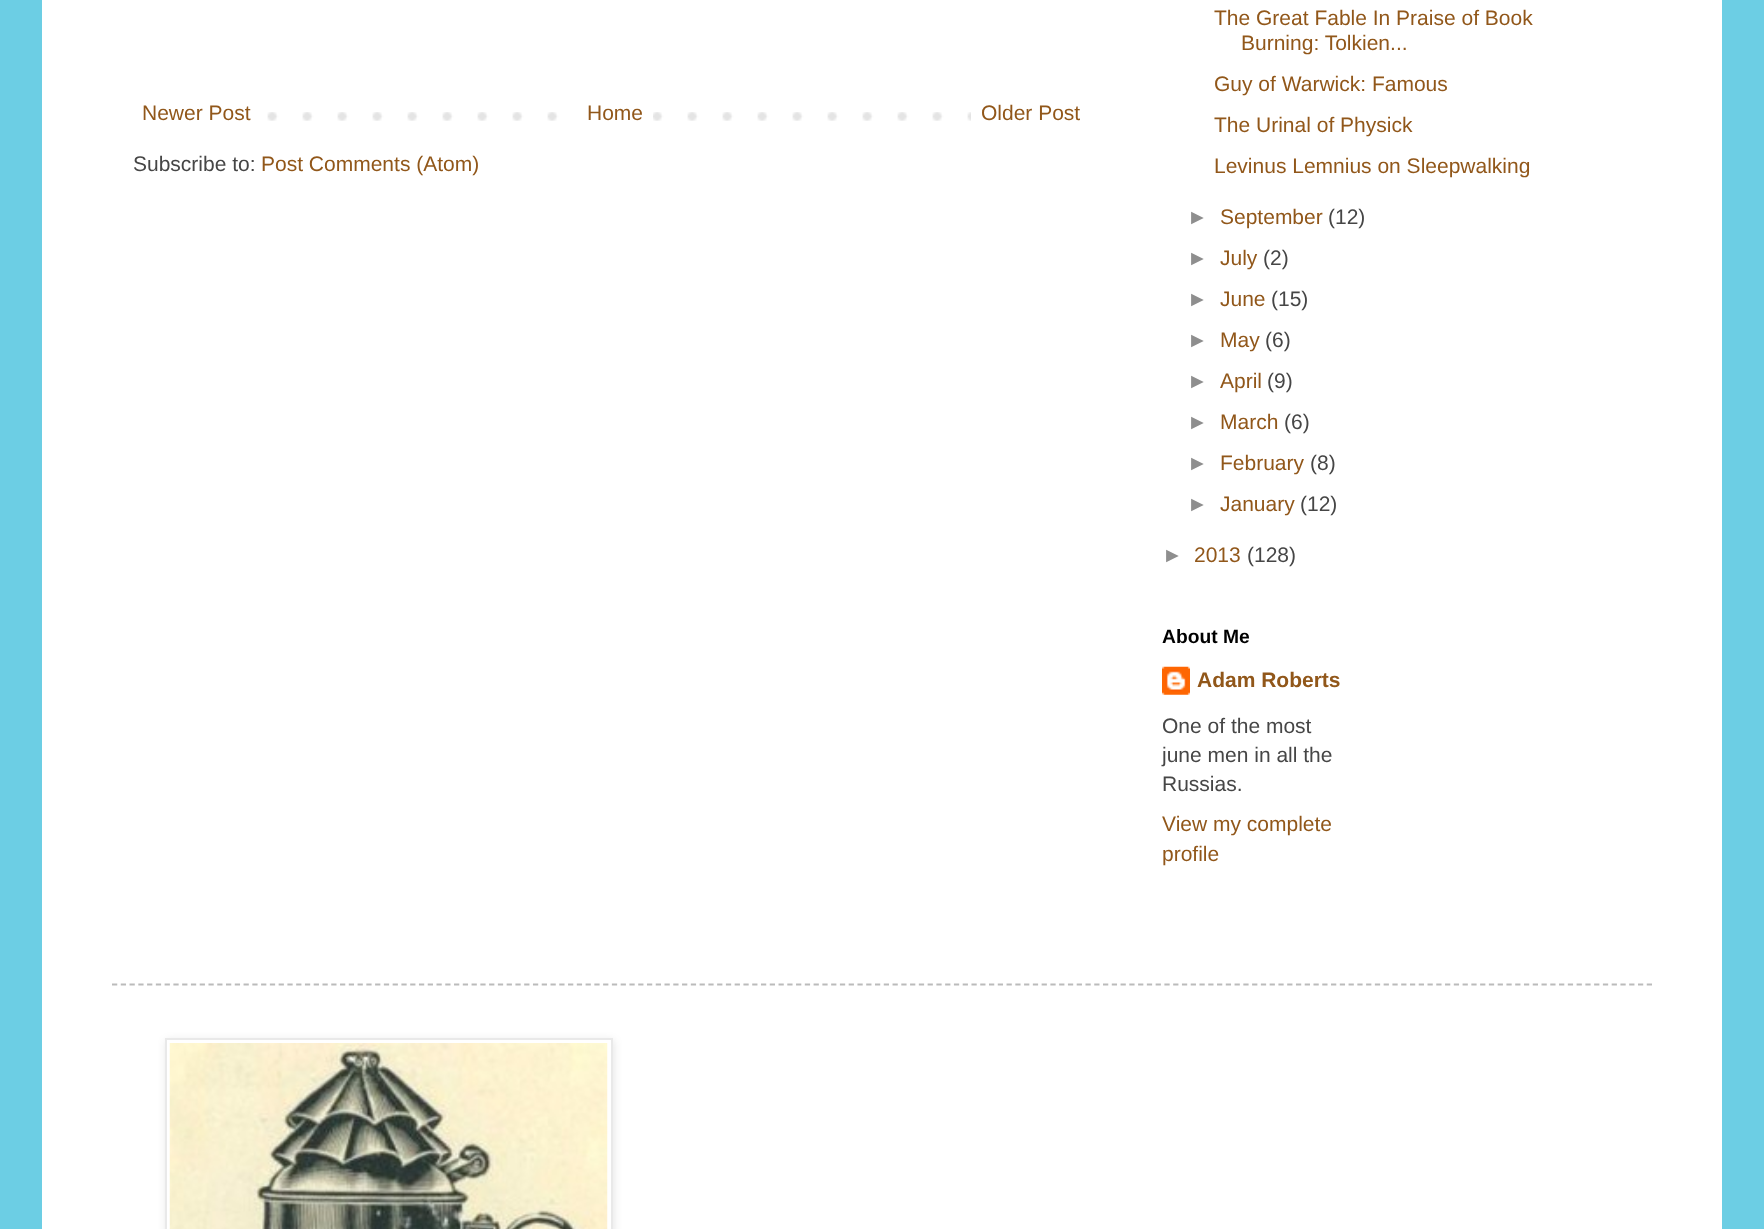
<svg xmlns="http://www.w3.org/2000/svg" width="1764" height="1229">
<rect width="100%" height="100%" fill="#6ccee4"/>
<rect x="42" width="1680" height="1229" fill="#fff"/>
<image x="267" y="112" width="704" height="9" href="media/1.png"/>
<text x="142" y="120" style="font-family:Liberation Sans;font-size:21px;fill:#91571a">Newer Post</text>
<rect x="582" y="112" width="71" height="9" fill="#fff"/>
<text x="587" y="120" style="font-family:Liberation Sans;font-size:21px;fill:#91571a">Home</text>
<text x="981" y="120" style="font-family:Liberation Sans;font-size:21px;fill:#91571a">Older Post</text>
<text x="133" y="171" style="font-family:Liberation Sans;font-size:21px;fill:#464646">Subscribe to:</text>
<text x="261" y="171" style="font-family:Liberation Sans;font-size:21px;fill:#91571a">Post Comments (Atom)</text>
<text x="1214" y="25" style="font-family:Liberation Sans;font-size:21px;fill:#91571a">The Great Fable In Praise of Book</text>
<text x="1241" y="50" style="font-family:Liberation Sans;font-size:21px;fill:#91571a">Burning: Tolkien...</text>
<text x="1214" y="91" style="font-family:Liberation Sans;font-size:21px;fill:#91571a">Guy of Warwick: Famous</text>
<text x="1214" y="132" style="font-family:Liberation Sans;font-size:21px;fill:#91571a">The Urinal of Physick</text>
<text x="1214" y="173" style="font-family:Liberation Sans;font-size:21px;fill:#91571a">Levinus Lemnius on Sleepwalking</text>
<text x="1187" y="224" style="font-family:Liberation Sans;font-size:21px;fill:#8e8e8e">►</text>
<text x="1220" y="224" style="font-family:Liberation Sans;font-size:21px;fill:#91571a">September</text>
<text x="1328" y="224" style="font-family:Liberation Sans;font-size:21px;fill:#464646">(12)</text>
<text x="1187" y="265" style="font-family:Liberation Sans;font-size:21px;fill:#8e8e8e">►</text>
<text x="1220" y="265" style="font-family:Liberation Sans;font-size:21px;fill:#91571a">July</text>
<text x="1263" y="265" style="font-family:Liberation Sans;font-size:21px;fill:#464646">(2)</text>
<text x="1187" y="306" style="font-family:Liberation Sans;font-size:21px;fill:#8e8e8e">►</text>
<text x="1220" y="306" style="font-family:Liberation Sans;font-size:21px;fill:#91571a">June</text>
<text x="1271" y="306" style="font-family:Liberation Sans;font-size:21px;fill:#464646">(15)</text>
<text x="1187" y="347" style="font-family:Liberation Sans;font-size:21px;fill:#8e8e8e">►</text>
<text x="1220" y="347" style="font-family:Liberation Sans;font-size:21px;fill:#91571a">May</text>
<text x="1265" y="347" style="font-family:Liberation Sans;font-size:21px;fill:#464646">(6)</text>
<text x="1187" y="388" style="font-family:Liberation Sans;font-size:21px;fill:#8e8e8e">►</text>
<text x="1220" y="388" style="font-family:Liberation Sans;font-size:21px;fill:#91571a">April</text>
<text x="1267" y="388" style="font-family:Liberation Sans;font-size:21px;fill:#464646">(9)</text>
<text x="1187" y="429" style="font-family:Liberation Sans;font-size:21px;fill:#8e8e8e">►</text>
<text x="1220" y="429" style="font-family:Liberation Sans;font-size:21px;fill:#91571a">March</text>
<text x="1284" y="429" style="font-family:Liberation Sans;font-size:21px;fill:#464646">(6)</text>
<text x="1187" y="470" style="font-family:Liberation Sans;font-size:21px;fill:#8e8e8e">►</text>
<text x="1220" y="470" style="font-family:Liberation Sans;font-size:21px;fill:#91571a">February</text>
<text x="1310" y="470" style="font-family:Liberation Sans;font-size:21px;fill:#464646">(8)</text>
<text x="1187" y="511" style="font-family:Liberation Sans;font-size:21px;fill:#8e8e8e">►</text>
<text x="1220" y="511" style="font-family:Liberation Sans;font-size:21px;fill:#91571a">January</text>
<text x="1300" y="511" style="font-family:Liberation Sans;font-size:21px;fill:#464646">(12)</text>
<text x="1162" y="562" style="font-family:Liberation Sans;font-size:21px;fill:#8e8e8e">►</text>
<text x="1194" y="562" style="font-family:Liberation Sans;font-size:21px;fill:#91571a">2013</text>
<text x="1247" y="562" style="font-family:Liberation Sans;font-size:21px;fill:#464646">(128)</text>
<text x="1162" y="643" style="font-family:Liberation Sans;font-size:19.25px;font-weight:bold;fill:#000">About Me</text>
<image x="1162" y="666" width="28" height="29" href="media/2.png"/>
<text x="1197" y="687" style="font-family:Liberation Sans;font-size:21px;font-weight:bold;fill:#91571a">Adam Roberts</text>
<text x="1162" y="733" style="font-family:Liberation Sans;font-size:21px;fill:#464646">One of the most</text>
<text x="1162" y="762" style="font-family:Liberation Sans;font-size:21px;fill:#464646">june men in all the</text>
<text x="1162" y="791" style="font-family:Liberation Sans;font-size:21px;fill:#464646">Russias.</text>
<text x="1162" y="831" style="font-family:Liberation Sans;font-size:21px;fill:#91571a">View my complete</text>
<text x="1162" y="861" style="font-family:Liberation Sans;font-size:21px;fill:#91571a">profile</text>
<path d="M112 984.5h1540" fill="none" stroke="#bbb" stroke-width="1.8" stroke-dasharray="5.25 3.52"/>
<rect x="166" y="1040" width="448" height="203" fill="#0000001a" filter="blur(4.5px)"/>
<rect x="166" y="1039" width="446" height="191" fill="#fff" stroke="#e9e9e9" stroke-width="2"/>
<image x="169" y="1043" width="439" height="186" href="media/3.png"/>
</svg>
